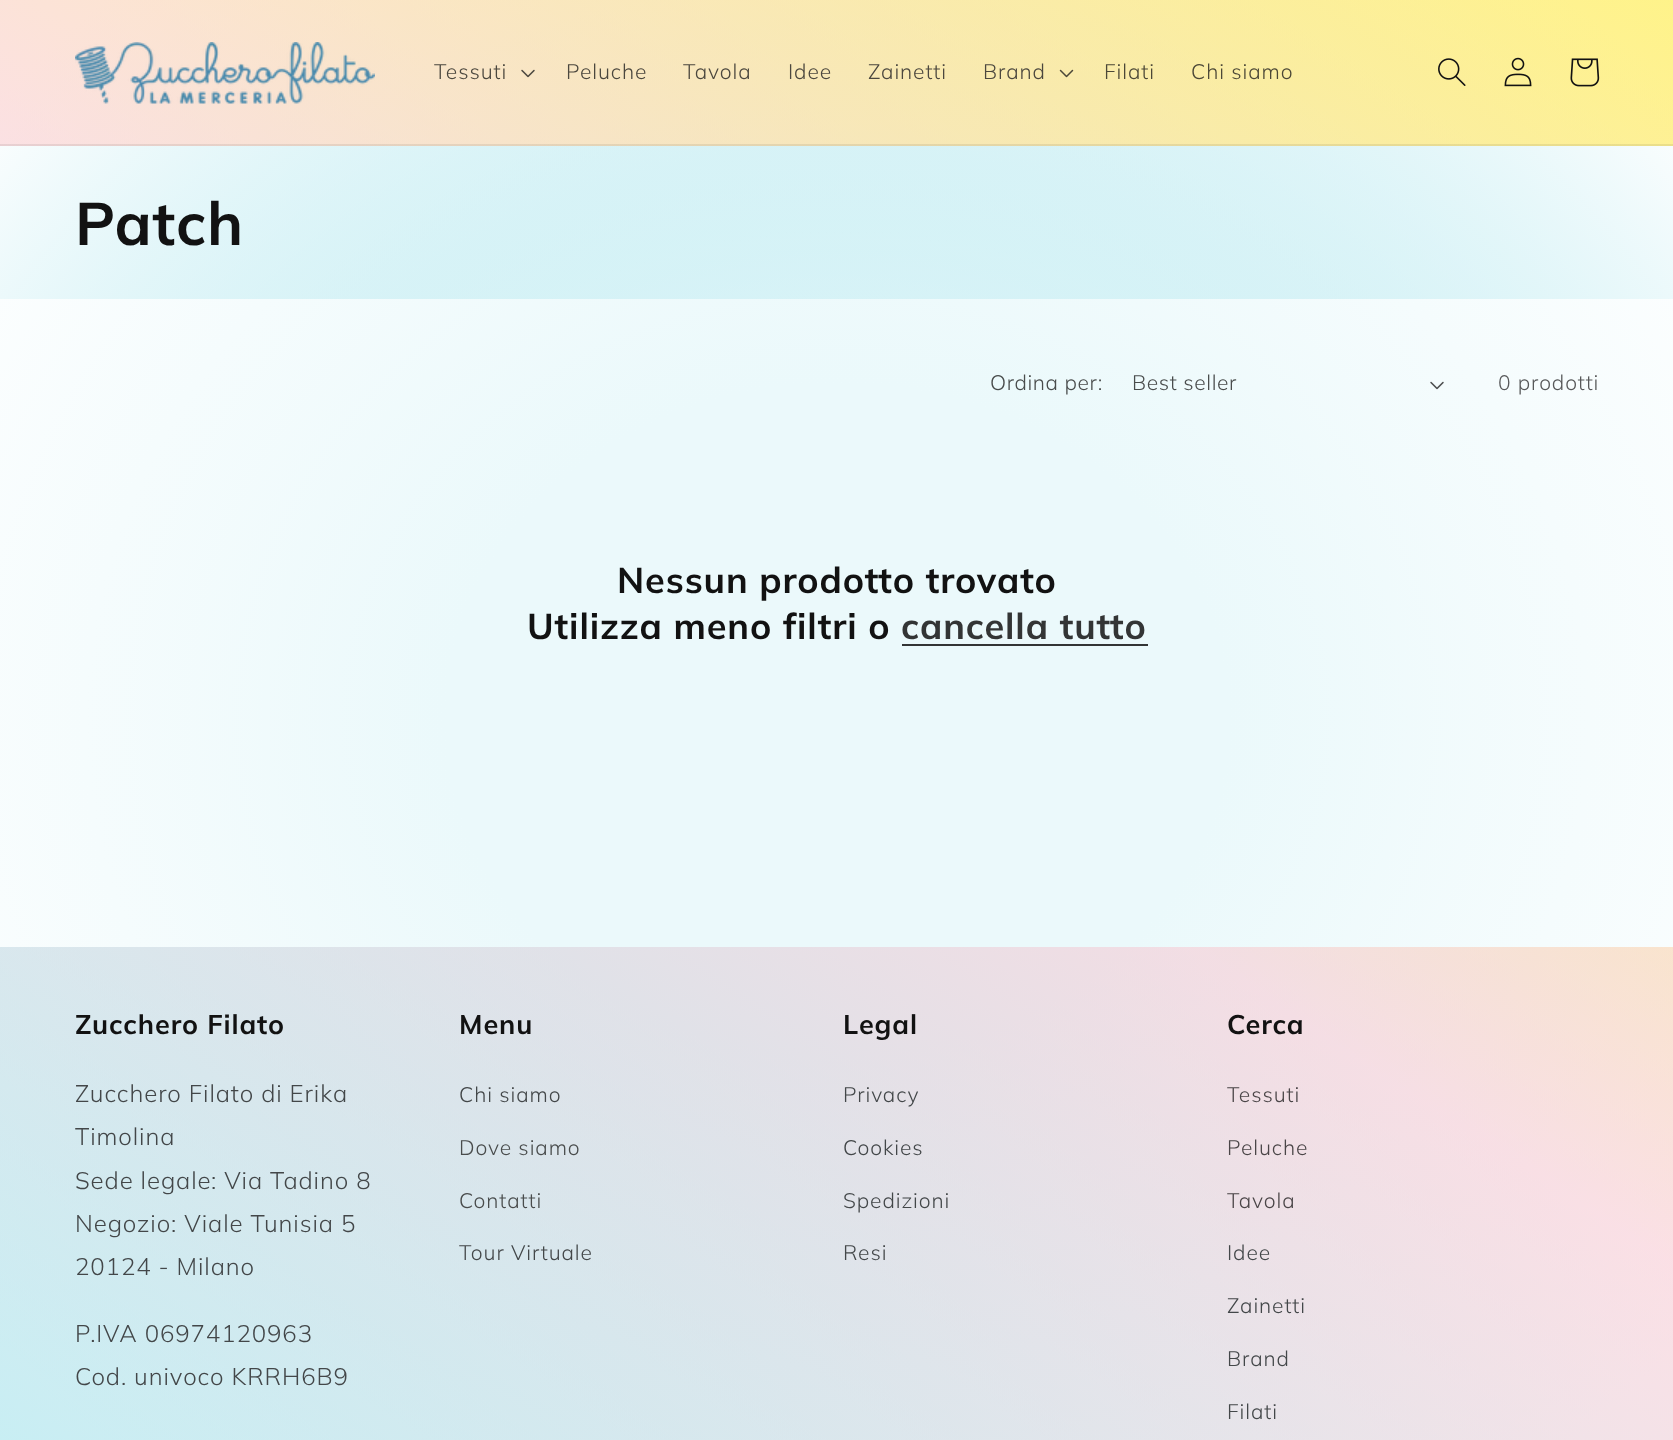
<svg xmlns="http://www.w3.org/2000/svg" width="1673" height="1440">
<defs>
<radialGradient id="g1" gradientUnits="userSpaceOnUse" cx="0" cy="0" r="1" gradientTransform="matrix(1184 0 0 1018 837 720)"><stop offset="0.33" stop-color="#ebf9fb"/><stop offset="0.94" stop-color="#fff"/></radialGradient>
<linearGradient id="g2" gradientUnits="userSpaceOnUse" x1="260" y1="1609" x2="1414" y2="-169"><stop offset="0" stop-color="#91dde8" stop-opacity="0.5"/><stop offset="0.5" stop-color="#f8c1cc" stop-opacity="0.5"/><stop offset="1" stop-color="#fee715" stop-opacity="0.5"/></linearGradient>
<radialGradient id="g3" gradientUnits="userSpaceOnUse" cx="0" cy="0" r="1" gradientTransform="matrix(1184 0 0 1018 837 720)"><stop offset="0.33" stop-color="#91dde8" stop-opacity="0.19"/><stop offset="0.94" stop-color="#fff"/></radialGradient>
</defs>
<rect width="100%" height="100%" fill="#fff"/>
<rect width="1673" height="1440" fill="url(#g1)"/>
<rect width="1673" height="146" fill="url(#g2)"/>
<rect y="144" width="1673" height="2" fill="#12121214"/>
<image x="75" y="42" width="300" height="62" href="media/1.png"/>
<text x="434" y="79" style="font-family:Muli;font-size:21px;font-weight:300;letter-spacing:0.9px;fill:#4b473e">Tessuti</text>
<image x="521" y="69" width="14" height="9" href="media/2.png"/>
<text x="566" y="79" style="font-family:Muli;font-size:21px;font-weight:300;letter-spacing:0.9px;fill:#4b473e">Peluche</text>
<text x="683" y="79" style="font-family:Muli;font-size:21px;font-weight:300;letter-spacing:0.9px;fill:#4b473e">Tavola</text>
<text x="788" y="79" style="font-family:Muli;font-size:21px;font-weight:300;letter-spacing:0.9px;fill:#4b473e">Idee</text>
<text x="868" y="79" style="font-family:Muli;font-size:21px;font-weight:300;letter-spacing:0.9px;fill:#4b473e">Zainetti</text>
<text x="983" y="79" style="font-family:Muli;font-size:21px;font-weight:300;letter-spacing:0.9px;fill:#4b473e">Brand</text>
<image x="1059" y="69" width="15" height="9" href="media/3.png"/>
<text x="1104" y="79" style="font-family:Muli;font-size:21px;font-weight:300;letter-spacing:0.9px;fill:#4c4837">Filati</text>
<text x="1191" y="79" style="font-family:Muli;font-size:21px;font-weight:300;letter-spacing:0.9px;fill:#4c4837">Chi siamo</text>
<image x="1438" y="58" width="28" height="28" href="media/4.png"/>
<image x="1504" y="57" width="28" height="30" href="media/5.png"/>
<image x="1570" y="58" width="30" height="29" href="media/6.png"/>
<rect y="146" width="1673" height="153" fill="url(#g3)"/>
<text x="75" y="245" style="font-family:Muli;font-size:60px;font-weight:bold;letter-spacing:0.9px;fill:#121212">Patch</text>
<text x="990" y="390" style="font-family:Muli;font-size:21px;font-weight:300;letter-spacing:0.6px;fill:#494c4c">Ordina per:</text>
<text x="1132" y="390" style="font-family:Muli;font-size:21px;font-weight:300;letter-spacing:0.6px;fill:#494c4c">Best seller</text>
<image x="1430" y="381" width="14" height="9" href="media/7.png"/>
<text x="1498" y="390" style="font-family:Muli;font-size:21px;font-weight:300;letter-spacing:0.9px;fill:#575859">0 prodotti</text>
<text x="617" y="593" style="font-family:Muli;font-size:36px;font-weight:bold;letter-spacing:0.9px;fill:#121212">Nessun prodotto trovato</text>
<text x="527" y="639" style="font-family:Muli;font-size:36px;font-weight:bold;letter-spacing:0.9px;fill:#121212">Utilizza meno filtri o</text>
<text x="901" y="639" style="font-family:Muli;font-size:36px;font-weight:bold;letter-spacing:0.9px;fill:#333535">cancella tutto</text>
<rect x="902" y="644" width="246" height="2" fill="#333535"/>
<rect y="947" width="1673" height="493" fill="url(#g2)"/>
<text x="75" y="1034" style="font-family:Muli;font-size:27px;font-weight:bold;letter-spacing:0.9px;fill:#121212">Zucchero Filato</text>
<text x="75" y="1102" style="font-family:Muli;font-size:24px;font-weight:300;letter-spacing:0.9px;fill:#434749">Zucchero Filato di Erika</text>
<text x="75" y="1145" style="font-family:Muli;font-size:24px;font-weight:300;letter-spacing:0.9px;fill:#434749">Timolina</text>
<text x="75" y="1189" style="font-family:Muli;font-size:24px;font-weight:300;letter-spacing:0.9px;fill:#434749">Sede legale</text>
<text x="211" y="1189" style="font-family:Muli;font-size:24px;font-weight:300;letter-spacing:0.9px;fill:#434749">: Via Tadino 8</text>
<text x="75" y="1232" style="font-family:Muli;font-size:24px;font-weight:300;letter-spacing:0.9px;fill:#434749">Negozio: Viale Tunisia 5</text>
<text x="75" y="1275" style="font-family:Muli;font-size:24px;font-weight:300;letter-spacing:0.9px;fill:#434749">20124 - Milano</text>
<text x="75" y="1342" style="font-family:Muli;font-size:24px;font-weight:300;letter-spacing:0.9px;fill:#434749">P.IVA 06974120963</text>
<text x="75" y="1385" style="font-family:Muli;font-size:24px;font-weight:300;letter-spacing:0.9px;fill:#434749">Cod. univoco KRRH6B9</text>
<text x="459" y="1034" style="font-family:Muli;font-size:27px;font-weight:bold;letter-spacing:0.9px;fill:#121212">Menu</text>
<text x="459" y="1102" style="font-family:Muli;font-size:21px;font-weight:300;letter-spacing:0.9px;fill:#434749">Chi siamo</text>
<text x="459" y="1155" style="font-family:Muli;font-size:21px;font-weight:300;letter-spacing:0.9px;fill:#494c4c">Dove siamo</text>
<text x="459" y="1208" style="font-family:Muli;font-size:21px;font-weight:300;letter-spacing:0.9px;fill:#494c4c">Contatti</text>
<text x="459" y="1260" style="font-family:Muli;font-size:21px;font-weight:300;letter-spacing:0.9px;fill:#434749">Tour Virtuale</text>
<text x="843" y="1034" style="font-family:Muli;font-size:27px;font-weight:bold;letter-spacing:0.9px;fill:#121212">Legal</text>
<text x="843" y="1102" style="font-family:Muli;font-size:21px;font-weight:300;letter-spacing:0.9px;fill:#434749">Privacy</text>
<text x="843" y="1155" style="font-family:Muli;font-size:21px;font-weight:300;letter-spacing:0.9px;fill:#434749">Cookies</text>
<text x="843" y="1208" style="font-family:Muli;font-size:21px;font-weight:300;letter-spacing:0.9px;fill:#434749">Spedizioni</text>
<text x="843" y="1260" style="font-family:Muli;font-size:21px;font-weight:300;letter-spacing:0.9px;fill:#434749">Resi</text>
<text x="1227" y="1034" style="font-family:Muli;font-size:27px;font-weight:bold;letter-spacing:0.9px;fill:#121212">Cerca</text>
<text x="1227" y="1102" style="font-family:Muli;font-size:21px;font-weight:300;letter-spacing:0.9px;fill:#4a4547">Tessuti</text>
<text x="1227" y="1155" style="font-family:Muli;font-size:21px;font-weight:300;letter-spacing:0.9px;fill:#4a4547">Peluche</text>
<text x="1227" y="1208" style="font-family:Muli;font-size:21px;font-weight:300;letter-spacing:0.9px;fill:#4a4547">Tavola</text>
<text x="1227" y="1260" style="font-family:Muli;font-size:21px;font-weight:300;letter-spacing:0.9px;fill:#434749">Idee</text>
<text x="1227" y="1313" style="font-family:Muli;font-size:21px;font-weight:300;letter-spacing:0.9px;fill:#434749">Zainetti</text>
<text x="1227" y="1366" style="font-family:Muli;font-size:21px;font-weight:300;letter-spacing:0.9px;fill:#434749">Brand</text>
<text x="1227" y="1419" style="font-family:Muli;font-size:21px;font-weight:300;letter-spacing:0.9px;fill:#434749">Filati</text>
</svg>
